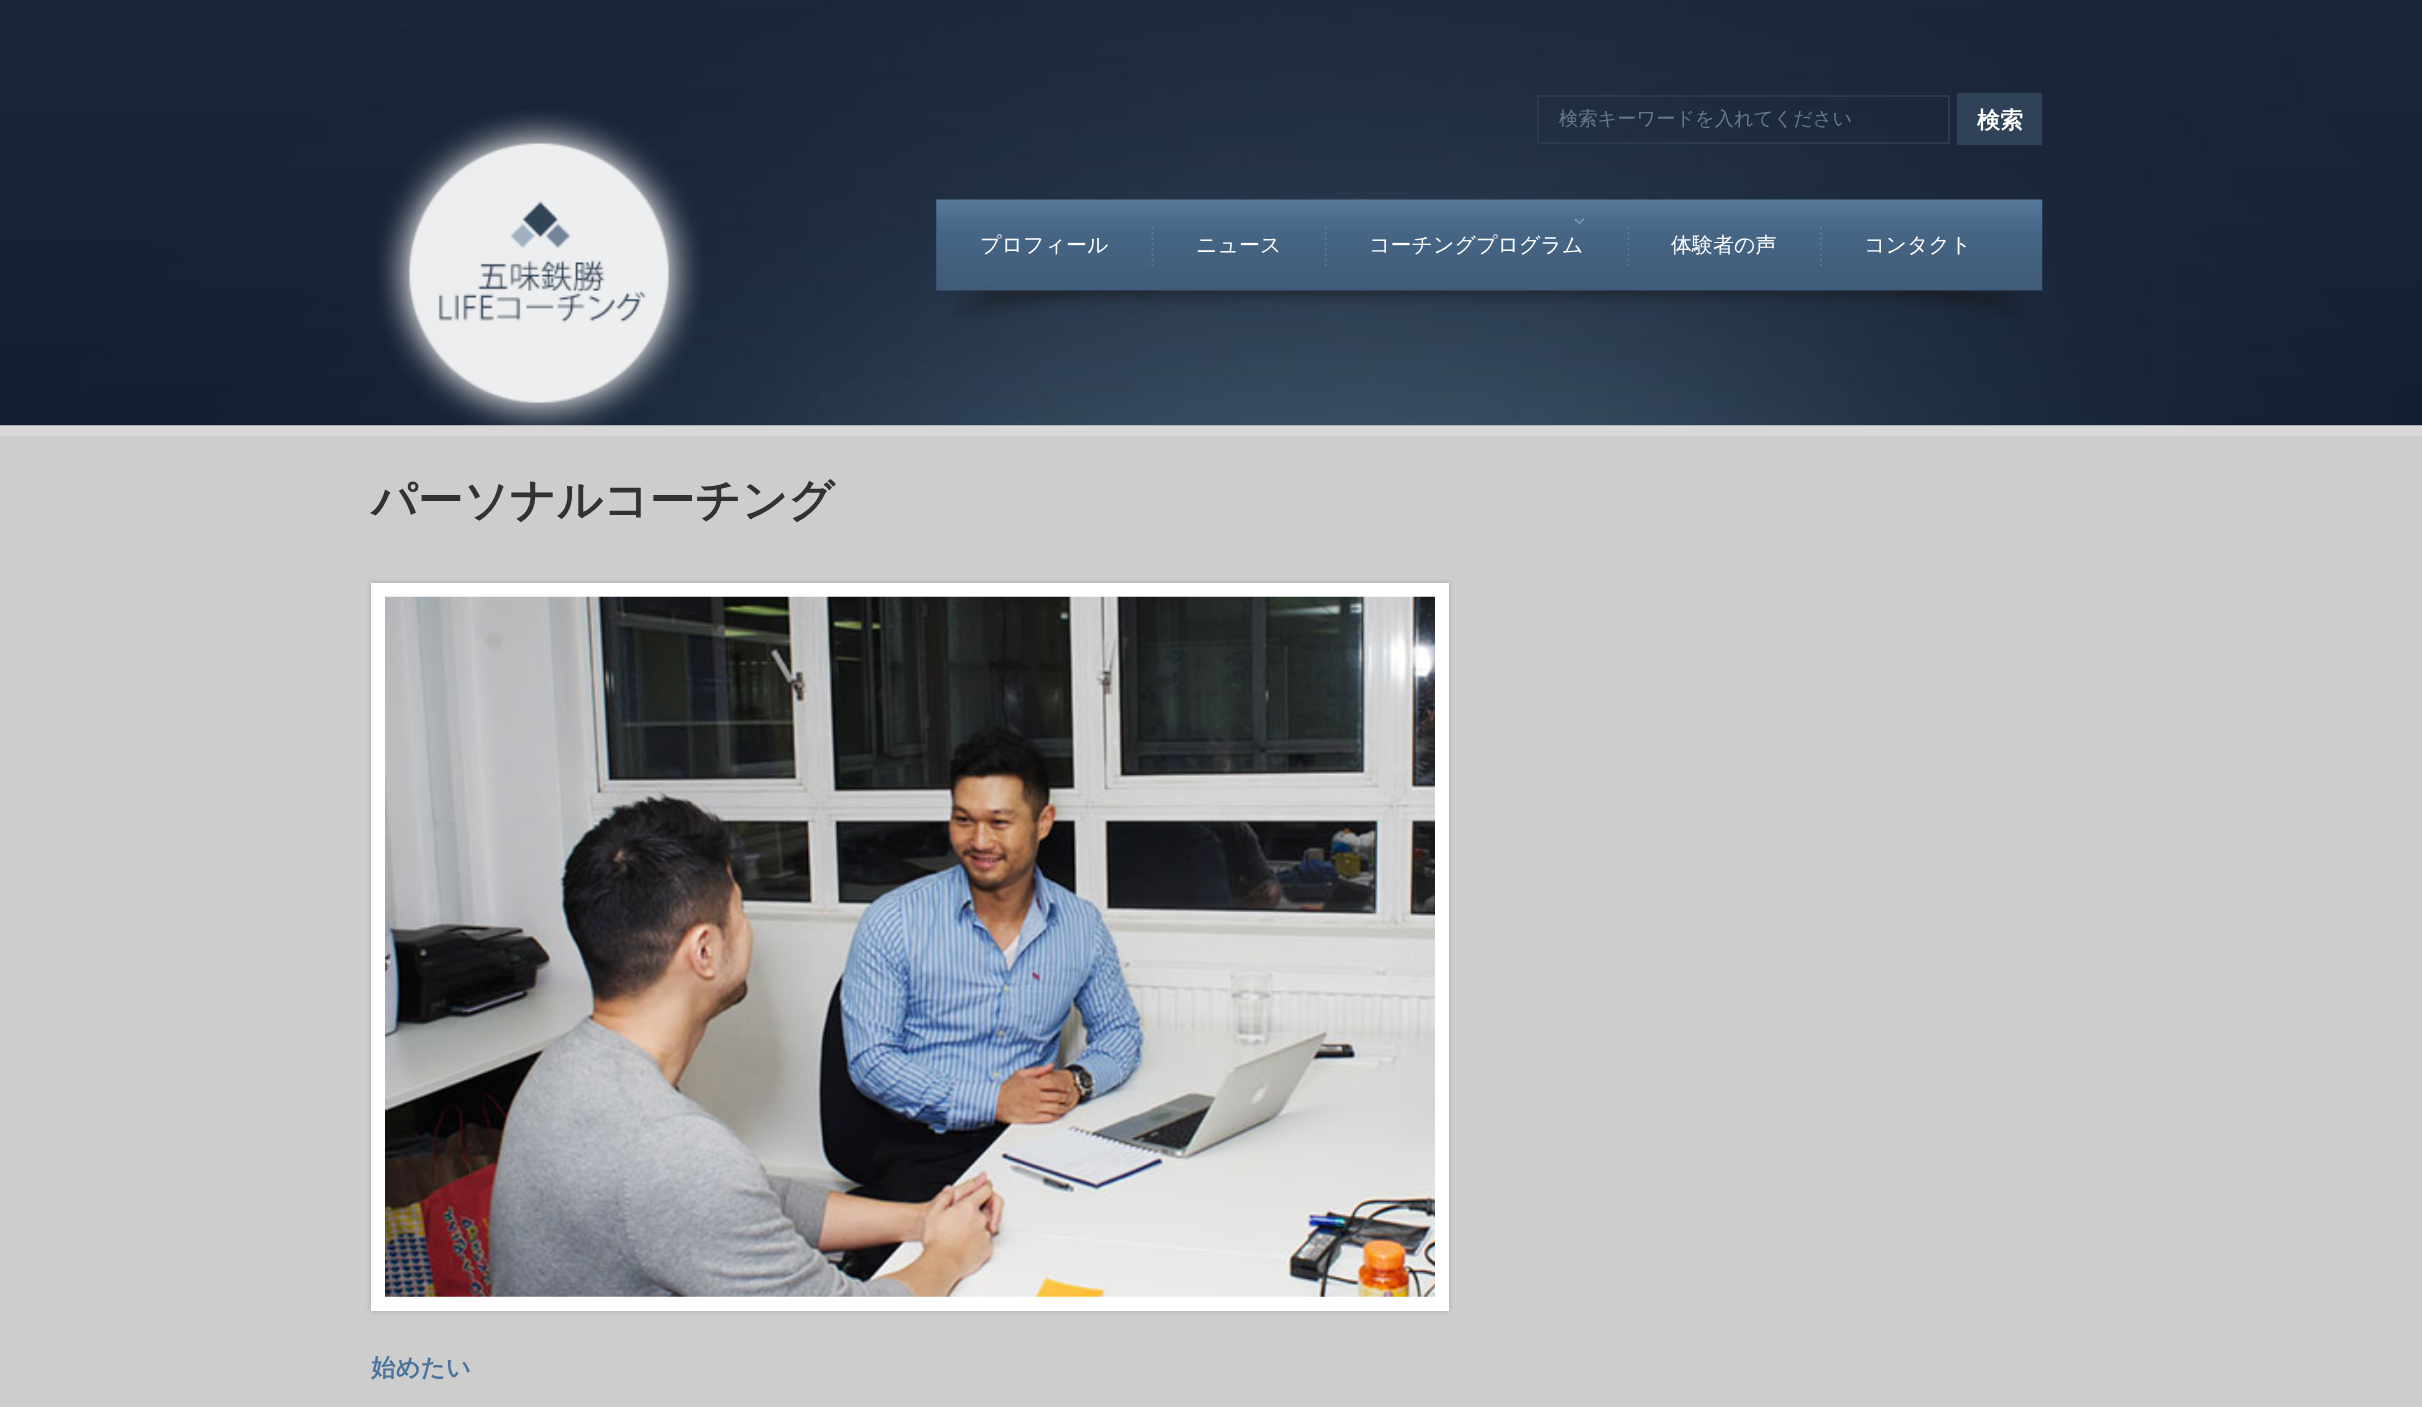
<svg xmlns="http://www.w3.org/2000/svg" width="2422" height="1407">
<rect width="100%" height="100%" fill="#cdcdcd"/>
<rect y="425" width="2422" height="11" fill="#d8d8d8"/>
<image x="0" y="0" width="2422" height="426" href="media/1.png"/>
<image x="376" y="110" width="326" height="316" href="media/2.png"/>
<rect x="1538" y="96" width="411" height="47" fill="none" stroke="#2e394a" stroke-width="2"/>
<text x="1559" y="125" style="font-family:WenQuanYi Zen Hei;font-size:19.25px;font-weight:500;fill:#647a8e">検索キーワードを入れてください</text>
<rect x="1957" y="93" width="85" height="52" fill="#2f4257"/>
<text x="1977" y="128" style="font-family:WenQuanYi Zen Hei;font-size:23px;font-weight:bold;fill:#fff">検索</text>
<image x="936" y="199" width="1107" height="120" href="media/3.png"/>
<text x="980" y="252" style="font-family:WenQuanYi Zen Hei;font-size:21px;font-weight:500;fill:#fff">プロフィール</text>
<image x="1151" y="227" width="3" height="39" href="media/4.png"/>
<text x="1196" y="252" style="font-family:WenQuanYi Zen Hei;font-size:21px;font-weight:500;fill:#fff">ニュース</text>
<image x="1324" y="227" width="3" height="39" href="media/5.png"/>
<image x="1575" y="218" width="9" height="6" href="media/6.png"/>
<text x="1369" y="252" style="font-family:WenQuanYi Zen Hei;font-size:21px;font-weight:500;fill:#fff">コーチングプログラム</text>
<image x="1627" y="227" width="3" height="39" href="media/4.png"/>
<text x="1671" y="252" style="font-family:WenQuanYi Zen Hei;font-size:21px;font-weight:500;fill:#fff">体験者の声</text>
<image x="1820" y="227" width="2" height="39" href="media/7.png"/>
<text x="1864" y="252" style="font-family:WenQuanYi Zen Hei;font-size:21px;font-weight:500;fill:#fff">コンタクト</text>
<text x="371" y="516" style="font-family:WenQuanYi Zen Hei;font-size:45.5px;font-weight:bold;fill:#323232">パーソナルコーチング</text>
<rect x="371" y="583" width="1078" height="728" fill="#00000033" filter="blur(2.5px)"/>
<rect x="371" y="583" width="1078" height="728" fill="#fff"/>
<image x="385" y="596" width="1050" height="701" href="media/8.png"/>
<text x="371" y="1376" style="font-family:WenQuanYi Zen Hei;font-size:24.5px;font-weight:bold;fill:#4c739b">始めたい</text>
</svg>
